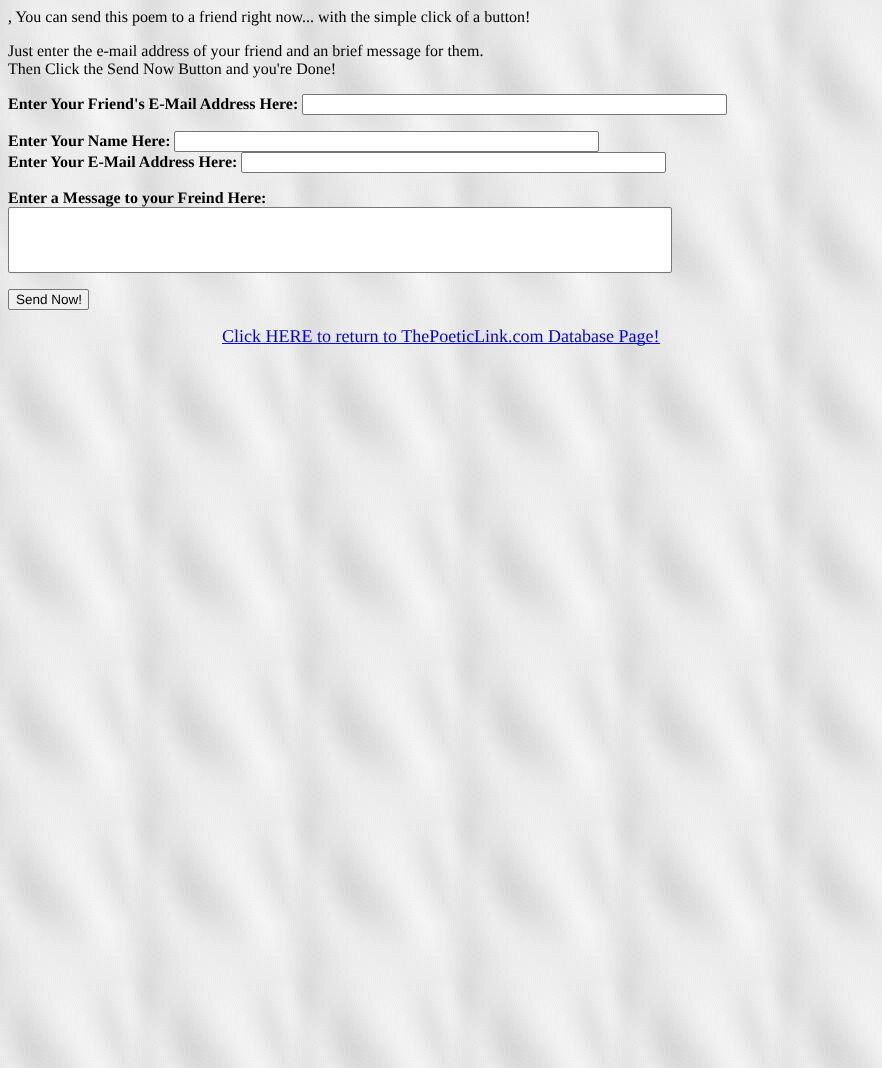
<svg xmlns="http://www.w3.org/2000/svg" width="882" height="1068">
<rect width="100%" height="100%" fill="#fff"/>
<image x="0" y="0" width="882" height="1068" href="media/1.png"/>
<text x="8" y="22" style="font-family:Liberation Serif;font-size:16px;fill:#000">, You can send this poem to a friend right now... with the simple click of a button!</text>
<text x="8" y="56" style="font-family:Liberation Serif;font-size:16px;fill:#000">Just enter the e-mail address of your friend and an brief message for them.</text>
<text x="8" y="74" style="font-family:Liberation Serif;font-size:16px;fill:#000">Then Click the Send Now Button and you're Done!</text>
<text x="8" y="109" style="font-family:Liberation Serif;font-size:16px;font-weight:bold;fill:#000">Enter Your Friend's E-Mail Address Here:</text>
<rect x="302.5" y="94.5" width="424" height="20" rx="1.5" fill="#fff" stroke="#767676"/>
<text x="8" y="146" style="font-family:Liberation Serif;font-size:16px;font-weight:bold;fill:#000">Enter Your Name Here:</text>
<rect x="174.5" y="131.5" width="424" height="20" rx="1.5" fill="#fff" stroke="#767676"/>
<text x="8" y="167" style="font-family:Liberation Serif;font-size:16px;font-weight:bold;fill:#000">Enter Your E-Mail Address Here:</text>
<rect x="241.5" y="152.5" width="424" height="20" rx="1.5" fill="#fff" stroke="#767676"/>
<text x="8" y="203" style="font-family:Liberation Serif;font-size:16px;font-weight:bold;fill:#000">Enter a Message to your Freind Here:</text>
<rect x="8.5" y="207.5" width="663" height="65" rx="1.5" fill="#fff" stroke="#767676"/>
<rect x="8.5" y="289.5" width="80" height="20" rx="1.5" fill="#efefef" stroke="#767676"/>
<text x="16" y="304" style="font-family:Liberation Sans;font-size:13.5px;fill:#000">Send Now!</text>
<rect x="222" y="343" width="438" height="1" fill="#00e"/>
<text x="222" y="342" style="font-family:Liberation Serif;font-size:18px;fill:#00e">Click HERE to return to ThePoeticLink.com Database Page!</text>
</svg>
